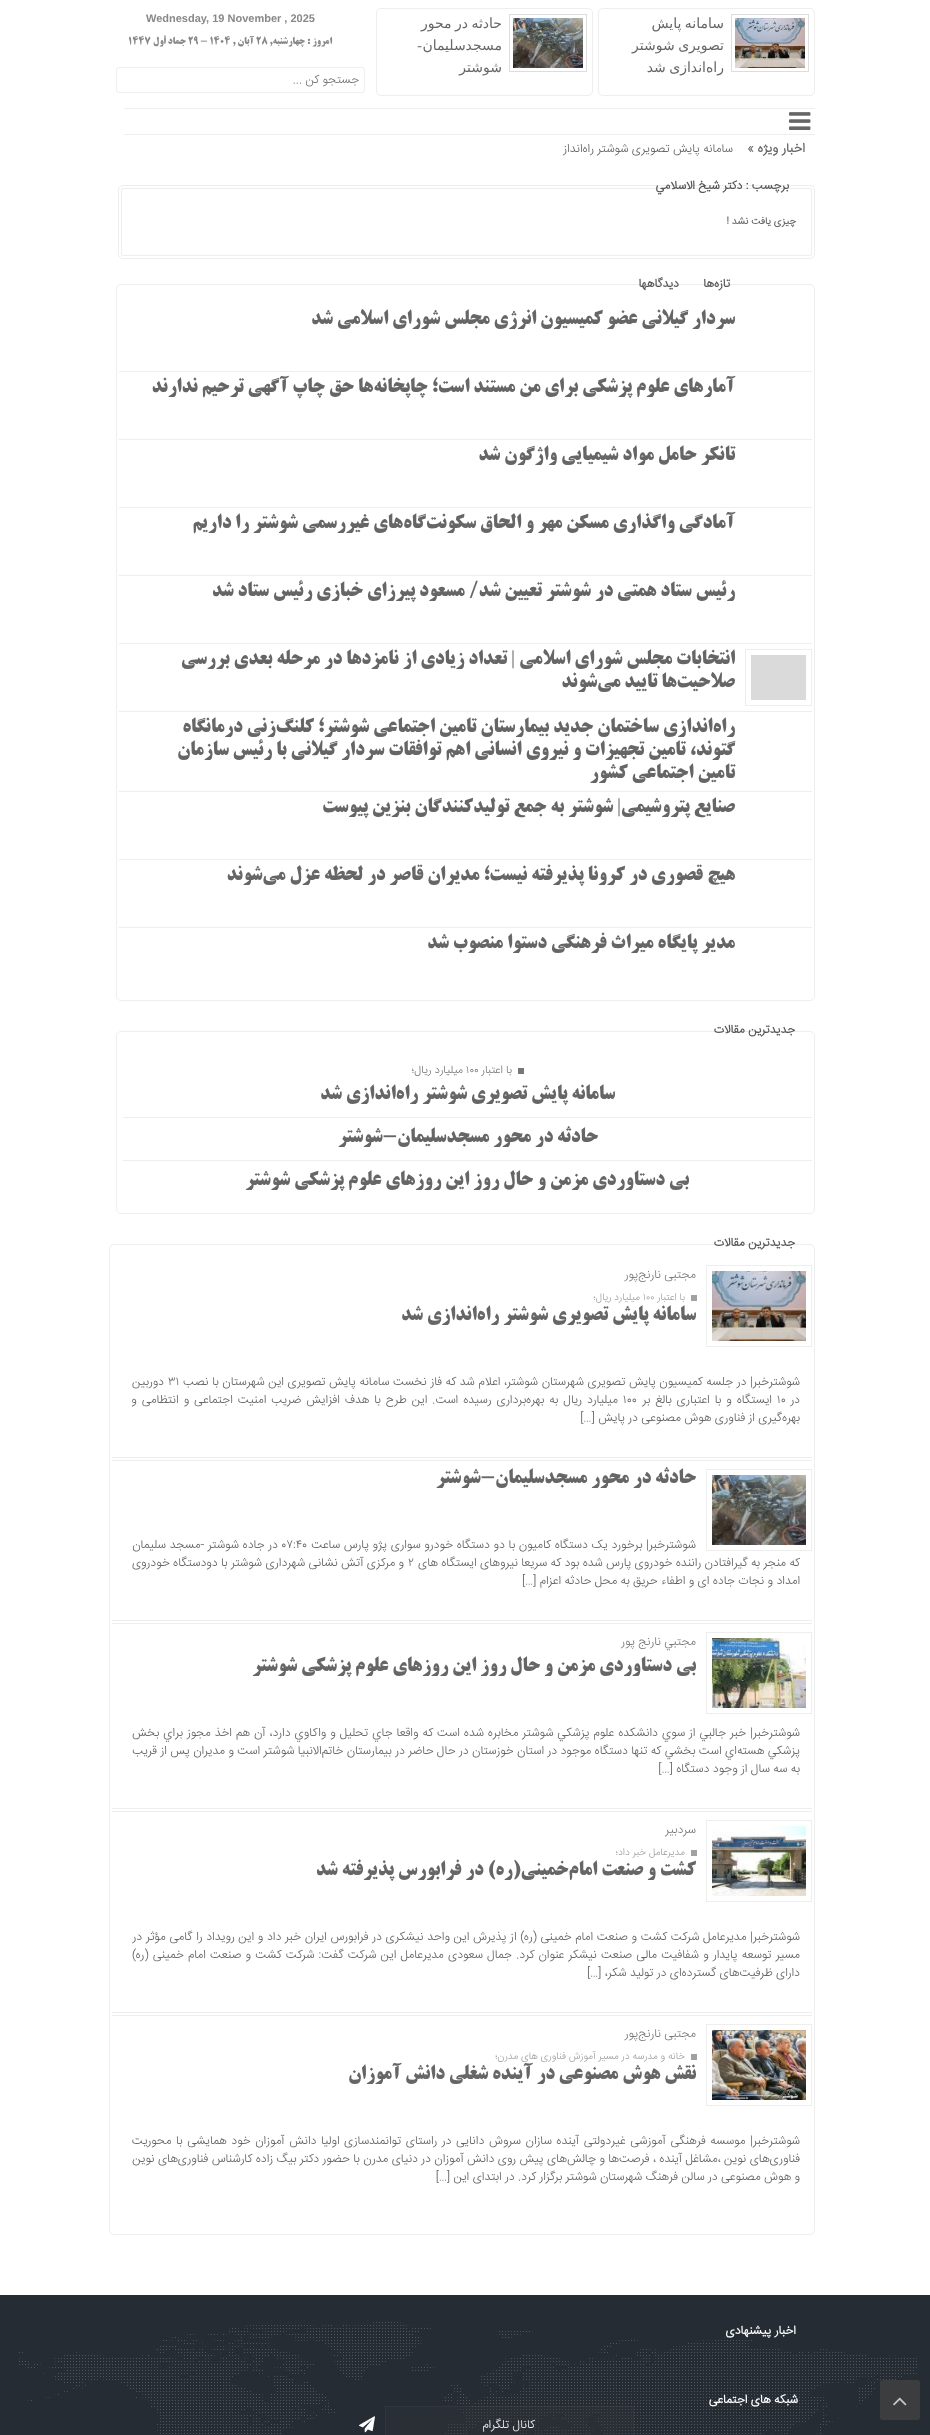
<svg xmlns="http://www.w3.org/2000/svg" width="930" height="2435">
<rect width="100%" height="100%" fill="#fff"/>
<rect x="598.5" y="8.5" width="216" height="87" rx="4.5" fill="none" stroke="#eee"/>
<rect x="731.5" y="14.5" width="77" height="57" fill="none" stroke="#ddd"/>
<image x="735" y="18" width="70" height="50" href="media/1.png"/>
<text x="724" y="28" word-spacing="-1" style="font-family:DejaVu Sans;font-size:14px;direction:rtl;fill:#666">سامانه پایش</text>
<text x="724" y="50" word-spacing="-1" style="font-family:DejaVu Sans;font-size:14px;direction:rtl;fill:#666">تصویری شوشتر</text>
<text x="724" y="72" style="font-family:DejaVu Sans;font-size:14px;direction:rtl;fill:#666">راه</text>
<text x="706" y="72" word-spacing="-1" style="font-family:DejaVu Sans;font-size:14px;direction:rtl;fill:#666">اندازی شد</text>
<rect x="376.5" y="8.5" width="216" height="87" rx="4.5" fill="none" stroke="#eee"/>
<rect x="509.5" y="14.5" width="77" height="57" fill="none" stroke="#ddd"/>
<image x="513" y="18" width="70" height="50" href="media/2.png"/>
<text x="502" y="28" word-spacing="-1" style="font-family:DejaVu Sans;font-size:14px;direction:rtl;fill:#666">حادثه در محور</text>
<text x="502" y="50" style="font-family:DejaVu Sans;font-size:14px;direction:rtl;fill:#666">مسجدسلیمان</text>
<text x="422" y="50" style="font-family:Liberation Serif;font-size:14px;direction:rtl;fill:#666">-</text>
<text x="502" y="72" style="font-family:DejaVu Sans;font-size:14px;direction:rtl;fill:#666">شوشتر</text>
<text x="146" y="22" style="font-family:Liberation Sans;font-size:11px;font-weight:bold;fill:#888">Wednesday, 19 November , 2025</text>
<text x="332" y="44" style="font-family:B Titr;font-size:10px;font-weight:bold;direction:rtl;fill:#888">امروز :</text>
<text x="305" y="44" style="font-family:B Titr;font-size:10px;font-weight:bold;direction:rtl;fill:#888">چهارشنبه,</text>
<text x="256" y="44" style="font-family:B Titr;font-size:10px;font-weight:bold;fill:#888">۲۸</text>
<text x="254" y="44" style="font-family:B Titr;font-size:10px;font-weight:bold;direction:rtl;fill:#888">آبان ,</text>
<text x="188" y="44" style="font-family:B Titr;font-size:10px;font-weight:bold;fill:#888">29 - ۱۴۰۴</text>
<text x="186" y="44" style="font-family:B Titr;font-size:10px;font-weight:bold;direction:rtl;fill:#888">جماد أول</text>
<text x="128" y="44" style="font-family:B Titr;font-size:10px;font-weight:bold;fill:#888">1447</text>
<rect x="116.5" y="67.5" width="248" height="25" rx="2.5" fill="none" stroke="#eee"/>
<text x="359" y="83" style="font-family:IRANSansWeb;font-size:12px;font-weight:300;direction:rtl;fill:#777">جستجو کن ...</text>
<rect x="124" y="108" width="691" height="1" fill="#eee"/>
<rect x="124" y="134" width="691" height="1" fill="#eee"/>
<image x="789" y="112" width="22" height="18" href="media/3.png"/>
<text x="805" y="152" style="font-family:IRANSansWeb;font-size:13px;font-weight:bold;direction:rtl;fill:#666">اخبار ویژه »</text>
<text x="733" y="152" style="font-family:IRANSansWeb;font-size:12px;font-weight:300;direction:rtl;fill:#666">سامانه پایش تصویری شوشتر راه‌انداز</text>
<rect x="118.5" y="185.5" width="696" height="73" rx="4.5" fill="none" stroke="#eee"/>
<rect x="121.5" y="188.5" width="690" height="67" rx="1.5" fill="none" stroke="#eee"/>
<text x="789" y="189" style="font-family:IRANSansWeb;font-size:12px;font-weight:bold;direction:rtl;fill:#555">برچسب : دكتر شيخ الاسلامي</text>
<text x="796" y="224" style="font-family:IRANSansWeb;font-size:10px;font-weight:bold;direction:rtl;fill:#666">چیزی یافت نشد !</text>
<rect x="116.5" y="284.5" width="698" height="716" rx="4.5" fill="none" stroke="#eee"/>
<text x="730" y="287" style="font-family:IRANSansWeb;font-size:12px;font-weight:bold;direction:rtl;fill:#555">تازه‌ها</text>
<text x="679" y="287" style="font-family:IRANSansWeb;font-size:12px;font-weight:bold;direction:rtl;fill:#555">دیدگاهها</text>
<rect x="119" y="371" width="693" height="1" fill="#eee"/>
<text x="735" y="324" style="font-family:B Titr;font-size:20px;font-weight:bold;direction:rtl;fill:#666">سردار گیلانی عضو کمیسیون انرژی مجلس شورای اسلامی شد</text>
<rect x="119" y="439" width="693" height="1" fill="#eee"/>
<text x="735" y="392" style="font-family:B Titr;font-size:20px;font-weight:bold;direction:rtl;fill:#666">آمارهای علوم پزشکی برای من مستند است؛ چاپخانه‌ها حق چاپ آگهی ترحیم ندارند</text>
<rect x="119" y="507" width="693" height="1" fill="#eee"/>
<text x="735" y="460" style="font-family:B Titr;font-size:20px;font-weight:bold;direction:rtl;fill:#666">تانکر حامل مواد شیمیایی واژگون شد</text>
<rect x="119" y="575" width="693" height="1" fill="#eee"/>
<text x="735" y="528" style="font-family:B Titr;font-size:20px;font-weight:bold;direction:rtl;fill:#666">آمادگی واگذاری مسکن مهر و الحاق سکونت‌گاه‌های غیررسمی شوشتر را داریم</text>
<rect x="119" y="643" width="693" height="1" fill="#eee"/>
<text x="735" y="596" style="font-family:B Titr;font-size:20px;font-weight:bold;direction:rtl;fill:#666">رئیس ستاد همتی در شوشتر تعیین شد/ مسعود پیرزای خبازی رئیس ستاد شد</text>
<rect x="119" y="711" width="693" height="1" fill="#eee"/>
<rect x="745.5" y="649.5" width="66" height="56" fill="none" stroke="#eee"/>
<rect x="751" y="655" width="55" height="45" fill="#dadada"/>
<text x="735" y="664" style="font-family:B Titr;font-size:20px;font-weight:bold;direction:rtl;fill:#666">انتخابات مجلس شورای اسلامی</text>
<text x="515" y="664" style="font-family:Liberation Serif;font-size:20px;direction:rtl;fill:#666">|</text>
<text x="507" y="664" style="font-family:B Titr;font-size:20px;font-weight:bold;direction:rtl;fill:#666">تعداد زیادی از نامزدها در مرحله بعدی بررسی</text>
<text x="735" y="687" style="font-family:B Titr;font-size:20px;font-weight:bold;direction:rtl;fill:#666">صلاحیت‌ها تایید می‌شوند</text>
<rect x="119" y="791" width="693" height="1" fill="#eee"/>
<text x="735" y="732" style="font-family:B Titr;font-size:20px;font-weight:bold;direction:rtl;fill:#666">راه‌اندازی ساختمان جدید بیمارستان تامین اجتماعی شوشتر؛ کلنگ‌زنی درمانگاه</text>
<text x="735" y="755" style="font-family:B Titr;font-size:20px;font-weight:bold;direction:rtl;fill:#666">گتوند، تامین تجهیزات و نیروی انسانی اهم توافقات سردار گیلانی با رئیس سازمان</text>
<text x="735" y="778" style="font-family:B Titr;font-size:20px;font-weight:bold;direction:rtl;fill:#666">تامین اجتماعی کشور</text>
<rect x="119" y="859" width="693" height="1" fill="#eee"/>
<text x="735" y="812" style="font-family:B Titr;font-size:20px;font-weight:bold;direction:rtl;fill:#666">صنایع پتروشیمی</text>
<text x="621" y="812" style="font-family:Liberation Serif;font-size:20px;direction:rtl;fill:#666">|</text>
<text x="613" y="812" style="font-family:B Titr;font-size:20px;font-weight:bold;direction:rtl;fill:#666">شوشتر به جمع تولیدکنندگان بنزین پیوست</text>
<rect x="119" y="927" width="693" height="1" fill="#eee"/>
<text x="735" y="880" style="font-family:B Titr;font-size:20px;font-weight:bold;direction:rtl;fill:#666">هیچ قصوری در کرونا پذیرفته نیست؛ مدیران قاصر در لحظه عزل می‌شوند</text>
<text x="735" y="948" style="font-family:B Titr;font-size:20px;font-weight:bold;direction:rtl;fill:#666">مدیر پایگاه میراث فرهنگی دستوا منصوب شد</text>
<rect x="116.5" y="1031.5" width="698" height="182" rx="4.5" fill="none" stroke="#eee"/>
<text x="795" y="1033" style="font-family:IRANSansWeb;font-size:12px;font-weight:bold;direction:rtl;fill:#555">جدیدترین مقالات</text>
<rect x="123" y="1117" width="689" height="1" fill="#eee"/>
<rect x="518" y="1068" width="6" height="6" fill="#777"/>
<text x="512" y="1073" style="font-family:IRANSansWeb;font-size:11px;font-weight:300;direction:rtl;fill:#777">با اعتبار</text>
<text x="466" y="1073" style="font-family:IRANSansWeb;font-size:11px;font-weight:300;fill:#777">۱۰۰</text>
<text x="463" y="1073" style="font-family:IRANSansWeb;font-size:11px;font-weight:300;direction:rtl;fill:#777">میلیارد ریال؛</text>
<text x="615" y="1099" style="font-family:B Titr;font-size:20px;font-weight:bold;direction:rtl;fill:#666">سامانه پایش تصویری شوشتر راه‌اندازی شد</text>
<rect x="123" y="1160" width="689" height="1" fill="#eee"/>
<text x="598" y="1142" style="font-family:B Titr;font-size:20px;font-weight:bold;direction:rtl;fill:#666">حادثه در محور مسجدسلیمان-شوشتر</text>
<text x="689" y="1185" style="font-family:B Titr;font-size:20px;font-weight:bold;direction:rtl;fill:#666">بي دستاوردي مزمن و حال روز اين روزهاي علوم پزشكي شوشتر</text>
<rect x="109.5" y="1244.5" width="705" height="990" rx="4.5" fill="none" stroke="#eee"/>
<text x="795" y="1246" style="font-family:IRANSansWeb;font-size:12px;font-weight:bold;direction:rtl;fill:#555">جدیدترین مقالات</text>
<rect x="112" y="1457" width="700" height="1" fill="#eee"/>
<rect x="112" y="1460" width="700" height="1" fill="#eee"/>
<rect x="706.5" y="1265.5" width="105" height="81" fill="none" stroke="#eee"/>
<image x="712" y="1271" width="94" height="70" href="media/4.png"/>
<text x="696" y="1278" style="font-family:IRANSansWeb;font-size:12px;font-weight:300;direction:rtl;fill:#7d7a7a">مجتبی نارنج‌پور</text>
<rect x="691" y="1295" width="6" height="6" fill="#a1a1a1"/>
<text x="685" y="1300" style="font-family:IRANSansWeb;font-size:10px;font-weight:300;direction:rtl;fill:#a1a1a1">با اعتبار</text>
<text x="643" y="1300" style="font-family:IRANSansWeb;font-size:10px;font-weight:300;fill:#a1a1a1">۱۰۰</text>
<text x="640" y="1300" style="font-family:IRANSansWeb;font-size:10px;font-weight:300;direction:rtl;fill:#a1a1a1">میلیارد ریال؛</text>
<text x="696" y="1320" style="font-family:B Titr;font-size:20px;font-weight:bold;direction:rtl;fill:#666">سامانه پایش تصویری شوشتر راه‌اندازی شد</text>
<text x="800" y="1385" word-spacing="0.25" style="font-family:IRANSansWeb;font-size:12px;font-weight:300;direction:rtl;fill:#666">شوشترخبر| در جلسه کمیسیون پایش تصویری شهرستان شوشتر، اعلام شد که فاز نخست سامانه پایش تصویری این شهرستان با نصب</text>
<text x="168" y="1385" style="font-family:IRANSansWeb;font-size:12px;font-weight:300;fill:#666">۳۱</text>
<text x="164" y="1385" style="font-family:IRANSansWeb;font-size:12px;font-weight:300;direction:rtl;fill:#666">دوربین</text>
<text x="800" y="1403" style="font-family:IRANSansWeb;font-size:12px;font-weight:300;direction:rtl;fill:#666">در</text>
<text x="777" y="1403" style="font-family:IRANSansWeb;font-size:12px;font-weight:300;fill:#666">۱۰</text>
<text x="772" y="1403" word-spacing="1.6" style="font-family:IRANSansWeb;font-size:12px;font-weight:300;direction:rtl;fill:#666">ایستگاه و با اعتباری بالغ بر</text>
<text x="623" y="1403" style="font-family:IRANSansWeb;font-size:12px;font-weight:300;fill:#666">۱۰۰</text>
<text x="618" y="1403" word-spacing="1.6" style="font-family:IRANSansWeb;font-size:12px;font-weight:300;direction:rtl;fill:#666">میلیارد ریال به بهره‌برداری رسیده است. این طرح با هدف افزایش ضریب امنیت اجتماعی و انتظامی و</text>
<text x="800" y="1421" style="font-family:IRANSansWeb;font-size:12px;font-weight:300;direction:rtl;fill:#666">بهره‌گیری از فناوری هوش مصنوعی در پایش […]</text>
<rect x="112" y="1620" width="700" height="1" fill="#eee"/>
<rect x="112" y="1623" width="700" height="1" fill="#eee"/>
<rect x="706.5" y="1469.5" width="105" height="81" fill="none" stroke="#eee"/>
<image x="712" y="1475" width="94" height="70" href="media/5.png"/>
<text x="696" y="1483" style="font-family:B Titr;font-size:20px;font-weight:bold;direction:rtl;fill:#666">حادثه در محور مسجدسلیمان-شوشتر</text>
<text x="696" y="1548" word-spacing="0.3" style="font-family:IRANSansWeb;font-size:12px;font-weight:300;direction:rtl;fill:#666">شوشترخبر| برخورد یک دستگاه کامیون با دو دستگاه خودرو سواری پژو پارس ساعت</text>
<text x="282" y="1548" style="font-family:IRANSansWeb;font-size:12px;font-weight:300;fill:#666">۰۷:۴۰</text>
<text x="278" y="1548" word-spacing="0.3" style="font-family:IRANSansWeb;font-size:12px;font-weight:300;direction:rtl;fill:#666">در جاده شوشتر -مسجد سلیمان</text>
<text x="800" y="1566" style="font-family:IRANSansWeb;font-size:12px;font-weight:300;direction:rtl;fill:#666">که منجر به گیرافتادن راننده خودروی پارس شده بود که سریعا نیروهای ایستگاه های</text>
<text x="408" y="1566" style="font-family:IRANSansWeb;font-size:12px;font-weight:300;fill:#666">۲</text>
<text x="404" y="1566" style="font-family:IRANSansWeb;font-size:12px;font-weight:300;direction:rtl;fill:#666">و مرکزی آتش نشانی شهرداری شوشتر با دودستگاه خودروی</text>
<text x="800" y="1584" style="font-family:IRANSansWeb;font-size:12px;font-weight:300;direction:rtl;fill:#666">امداد و نجات جاده ای و اطفاء حریق به محل حادثه اعزام […]</text>
<rect x="112" y="1808" width="700" height="1" fill="#eee"/>
<rect x="112" y="1811" width="700" height="1" fill="#eee"/>
<rect x="706.5" y="1632.5" width="105" height="81" fill="none" stroke="#eee"/>
<image x="712" y="1638" width="94" height="70" href="media/6.png"/>
<text x="696" y="1645" style="font-family:IRANSansWeb;font-size:12px;font-weight:300;direction:rtl;fill:#7d7a7a">مجتبي نارنج پور</text>
<text x="696" y="1671" style="font-family:B Titr;font-size:20px;font-weight:bold;direction:rtl;fill:#666">بي دستاوردي مزمن و حال روز اين روزهاي علوم پزشكي شوشتر</text>
<text x="800" y="1736" word-spacing="0.6" style="font-family:IRANSansWeb;font-size:12px;font-weight:300;direction:rtl;fill:#666">شوشترخبر| خبر جالبي از سوي دانشكده علوم پزشكي شوشتر مخابره شده است كه واقعا جاي تحليل و واكاوي دارد، آن هم اخذ مجوز براي بخش</text>
<text x="800" y="1754" style="font-family:IRANSansWeb;font-size:12px;font-weight:300;direction:rtl;fill:#666">پزشكي هسته‌اي است بخشي كه تنها دستگاه موجود در استان خوزستان در حال حاضر در بيمارستان خاتم‌الانبيا شوشتر است و مديران پس از قريب</text>
<text x="800" y="1772" style="font-family:IRANSansWeb;font-size:12px;font-weight:300;direction:rtl;fill:#666">به سه سال از وجود دستگاه […]</text>
<rect x="112" y="2012" width="700" height="1" fill="#eee"/>
<rect x="112" y="2015" width="700" height="1" fill="#eee"/>
<rect x="706.5" y="1820.5" width="105" height="81" fill="none" stroke="#eee"/>
<image x="712" y="1826" width="94" height="70" href="media/7.png"/>
<text x="696" y="1833" style="font-family:IRANSansWeb;font-size:12px;font-weight:300;direction:rtl;fill:#7d7a7a">سردبیر</text>
<rect x="691" y="1850" width="6" height="6" fill="#a1a1a1"/>
<text x="685" y="1855" style="font-family:IRANSansWeb;font-size:10px;font-weight:300;direction:rtl;fill:#a1a1a1">مدیرعامل خبر داد؛</text>
<text x="696" y="1875" style="font-family:B Titr;font-size:20px;font-weight:bold;direction:rtl;fill:#666">کشت و صنعت امام‌خمینی(ره) در فرابورس پذیرفته شد</text>
<text x="800" y="1940" word-spacing="0.3" style="font-family:IRANSansWeb;font-size:12px;font-weight:300;direction:rtl;fill:#666">شوشترخبر| مدیرعامل شرکت کشت و صنعت امام خمینی (ره) از پذیرش این واحد نیشکری در فرابورس ایران خبر داد و این رویداد را گامی مؤثر در</text>
<text x="800" y="1958" word-spacing="0.85" style="font-family:IRANSansWeb;font-size:12px;font-weight:300;direction:rtl;fill:#666">مسیر توسعه پایدار و شفافیت مالی صنعت نیشکر عنوان کرد. جمال سعودی مدیرعامل این شرکت گفت: شرکت کشت و صنعت امام خمینی (ره)</text>
<text x="800" y="1976" style="font-family:IRANSansWeb;font-size:12px;font-weight:300;direction:rtl;fill:#666">دارای ظرفیت‌های گسترده‌ای در تولید شکر، […]</text>
<rect x="706.5" y="2024.5" width="105" height="81" fill="none" stroke="#eee"/>
<image x="712" y="2030" width="94" height="70" href="media/8.png"/>
<text x="696" y="2037" style="font-family:IRANSansWeb;font-size:12px;font-weight:300;direction:rtl;fill:#7d7a7a">مجتبی نارنج‌پور</text>
<rect x="691" y="2054" width="6" height="6" fill="#a1a1a1"/>
<text x="685" y="2059" style="font-family:IRANSansWeb;font-size:10px;font-weight:300;direction:rtl;fill:#a1a1a1">خانه و مدرسه در مسیر آموزش فناوری های مدرن؛</text>
<text x="696" y="2079" style="font-family:B Titr;font-size:20px;font-weight:bold;direction:rtl;fill:#666">نقش هوش مصنوعی در آینده شغلی دانش آموزان</text>
<text x="800" y="2144" word-spacing="1.2" style="font-family:IRANSansWeb;font-size:12px;font-weight:300;direction:rtl;fill:#666">شوشترخبر| موسسه فرهنگی آموزشی غیردولتی آینده سازان سروش دانایی در راستای توانمندسازی اولیا دانش آموزان خود همایشی با محوریت</text>
<text x="800" y="2162" style="font-family:IRANSansWeb;font-size:12px;font-weight:300;direction:rtl;fill:#666">فناوری‌های نوین ،مشاغل آینده ، فرصت‌ها و چالش‌های پیش روی دانش آموزان در دنیای مدرن با حضور دکتر بیگ زاده کارشناس فناوری‌های نوین</text>
<text x="800" y="2180" style="font-family:IRANSansWeb;font-size:12px;font-weight:300;direction:rtl;fill:#666">و هوش مصنوعی در سالن فرهنگ شهرستان شوشتر برگزار کرد. در ابتدای این […]</text>
<rect y="2295" width="930" height="140" fill="#262c33"/>
<image x="19" y="2322" width="898" height="112" href="media/10.png"/>
<rect x="880" y="2380" width="40" height="40" rx="3" fill="#444444b3"/>
<image x="893" y="2397" width="14" height="9" href="media/9.png"/>
<text x="796" y="2334" style="font-family:IRANSansWeb;font-size:12px;font-weight:bold;direction:rtl;fill:#fff">اخبار پیشنهادی</text>
<text x="798" y="2403" style="font-family:IRANSansWeb;font-size:12px;font-weight:bold;direction:rtl;fill:#fff">شبکه های اجتماعی</text>
<rect x="385" y="2406" width="249" height="29" fill="#30353a66"/>
<rect x="385.5" y="2406.5" width="248" height="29" fill="none" stroke="#ffffff0a"/>
<text x="535" y="2428" style="font-family:IRANSansWeb;font-size:12px;font-weight:300;direction:rtl;fill:#eee">کانال تلگرام</text>
<image x="359" y="2416" width="16" height="17" href="media/11.png"/>
</svg>
